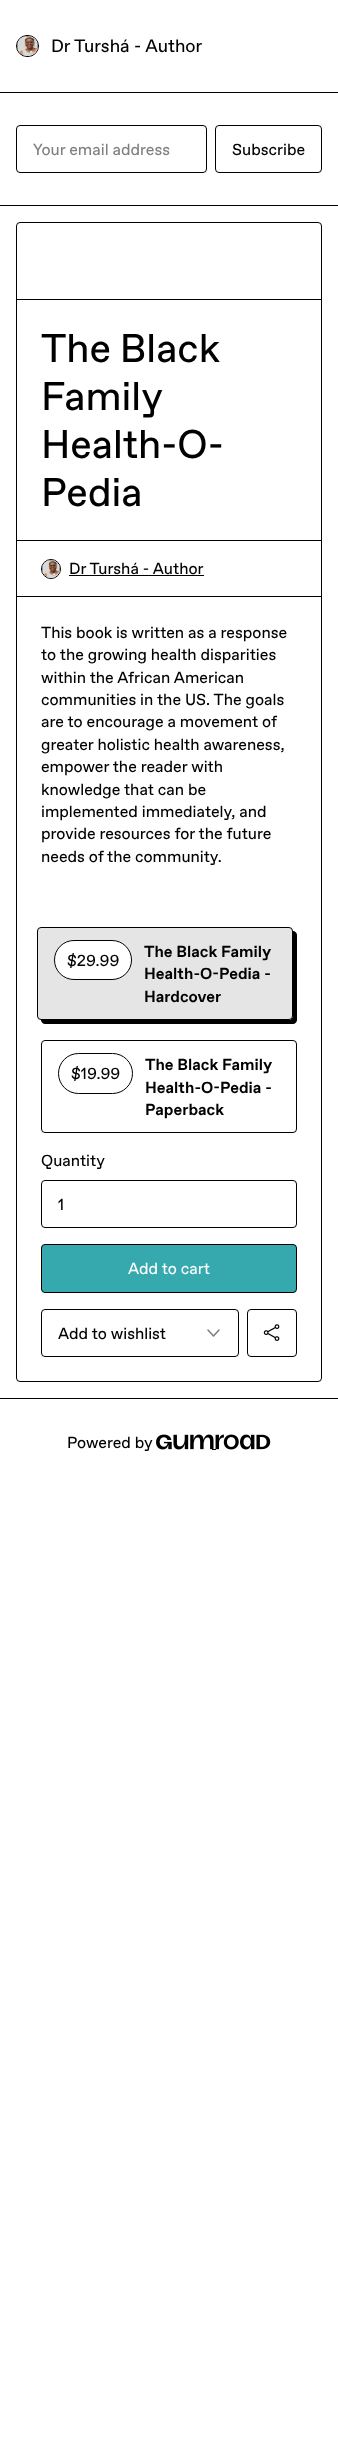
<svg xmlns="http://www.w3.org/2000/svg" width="338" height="2452">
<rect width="100%" height="100%" fill="#fff"/>
<rect y="92" width="338" height="1" fill="#000"/>
<rect x="16.5" y="35.5" width="22" height="21" rx="10.5" fill="none" stroke="#000"/>
<image x="17" y="36" width="21" height="20" href="media/1.png"/>
<text x="51" y="52" style="font-family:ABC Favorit;font-size:18px;fill:#000">Dr Turshá - Author</text>
<rect y="205" width="338" height="1" fill="#000"/>
<rect x="16.5" y="125.5" width="190" height="47" rx="3.5" fill="none" stroke="#000"/>
<text x="33" y="155" style="font-family:ABC Favorit;font-size:16px;fill:#808080">Your email address</text>
<rect x="215.5" y="125.5" width="106" height="47" rx="3.5" fill="none" stroke="#000"/>
<text x="232" y="155" style="font-family:ABC Favorit;font-size:16px;fill:#000">Subscribe</text>
<rect y="1398" width="338" height="1" fill="#000"/>
<rect x="16.5" y="222.5" width="305" height="1159" rx="3.5" fill="none" stroke="#000"/>
<rect x="17" y="299" width="304" height="1" fill="#000"/>
<text x="41" y="362" word-spacing="-1" style="font-family:ABC Favorit;font-size:40px;fill:#000">The Black</text>
<text x="41" y="410" style="font-family:ABC Favorit;font-size:40px;fill:#000">Family</text>
<text x="41" y="458" style="font-family:ABC Favorit;font-size:40px;fill:#000">Health-O-</text>
<text x="41" y="506" style="font-family:ABC Favorit;font-size:40px;fill:#000">Pedia</text>
<rect x="17" y="540" width="304" height="1" fill="#000"/>
<circle cx="51" cy="569" r="9.5" fill="none" stroke="#000"/>
<image x="42" y="560" width="18" height="18" href="media/2.png"/>
<text x="69" y="574" style="font-family:ABC Favorit;font-size:16px;fill:#000">Dr Turshá - Author</text>
<rect x="69" y="575" width="135" height="1" fill="#000"/>
<rect x="17" y="596" width="304" height="1" fill="#000"/>
<text x="41" y="638" style="font-family:ABC Favorit;font-size:16px;fill:#000">This book is written as a response</text>
<text x="41" y="660" style="font-family:ABC Favorit;font-size:16px;fill:#000">to the growing health disparities</text>
<text x="41" y="683" style="font-family:ABC Favorit;font-size:16px;fill:#000">within the African American</text>
<text x="41" y="705" style="font-family:ABC Favorit;font-size:16px;fill:#000">communities in the US. The goals</text>
<text x="41" y="727" style="font-family:ABC Favorit;font-size:16px;fill:#000">are to encourage a movement of</text>
<text x="41" y="750" style="font-family:ABC Favorit;font-size:16px;fill:#000">greater holistic health awareness,</text>
<text x="41" y="772" style="font-family:ABC Favorit;font-size:16px;fill:#000">empower the reader with</text>
<text x="41" y="795" style="font-family:ABC Favorit;font-size:16px;fill:#000">knowledge that can be</text>
<text x="41" y="817" style="font-family:ABC Favorit;font-size:16px;fill:#000">implemented immediately, and</text>
<text x="41" y="839" style="font-family:ABC Favorit;font-size:16px;fill:#000">provide resources for the future</text>
<text x="41" y="862" style="font-family:ABC Favorit;font-size:16px;fill:#000">needs of the community.</text>
<path d="M41 1020c0 2 2 4 4 4h248c2 0 4-2 4-4v-85c0-2-2-4-4-4v85c0 2-2 4-4 4z" fill="#000"/>
<rect x="37.5" y="927.5" width="255" height="92" rx="3.5" fill="#0000001a" stroke="#000"/>
<rect x="54.5" y="940.5" width="77" height="39" rx="19.5" fill="#fff" stroke="#000"/>
<text x="67" y="966" style="font-family:ABC Favorit;font-size:16px;fill:#000">$29.99</text>
<text x="144" y="957" style="font-family:ABC Favorit;font-size:16px;font-weight:bold;fill:#000">The Black Family</text>
<text x="144" y="979" style="font-family:ABC Favorit;font-size:16px;font-weight:bold;fill:#000">Health-O-Pedia -</text>
<text x="144" y="1002" style="font-family:ABC Favorit;font-size:16px;font-weight:bold;fill:#000">Hardcover</text>
<rect x="41.5" y="1040.5" width="255" height="92" rx="3.5" fill="none" stroke="#000"/>
<rect x="58.5" y="1053.5" width="74" height="40" rx="20" fill="none" stroke="#000"/>
<text x="71" y="1079" style="font-family:ABC Favorit;font-size:16px;fill:#000">$19.99</text>
<text x="145" y="1070" style="font-family:ABC Favorit;font-size:16px;font-weight:bold;fill:#000">The Black Family</text>
<text x="145" y="1093" style="font-family:ABC Favorit;font-size:16px;font-weight:bold;fill:#000">Health-O-Pedia -</text>
<text x="145" y="1115" style="font-family:ABC Favorit;font-size:16px;font-weight:bold;fill:#000">Paperback</text>
<text x="41" y="1166" style="font-family:ABC Favorit;font-size:16px;fill:#000">Quantity</text>
<rect x="41.5" y="1180.5" width="255" height="47" rx="3.5" fill="none" stroke="#000"/>
<text x="58" y="1210" style="font-family:ABC Favorit;font-size:16px;fill:#000">1</text>
<rect x="41.5" y="1244.5" width="255" height="48" rx="3.5" fill="#36a9ae" stroke="#000"/>
<text x="128" y="1274" style="font-family:ABC Favorit;font-size:16px;fill:#fff">Add to cart</text>
<rect x="41.5" y="1309.5" width="197" height="47" rx="3.5" fill="none" stroke="#000"/>
<text x="58" y="1339" style="font-family:ABC Favorit;font-size:16px;fill:#000">Add to wishlist</text>
<path d="M219 1330l-5.5 6l-5.5-6" fill="none" stroke="#808080" stroke-width="1.6" stroke-linecap="round" stroke-linejoin="round"/>
<rect x="247.5" y="1309.5" width="49" height="47" rx="3.5" fill="none" stroke="#000"/>
<image x="263" y="1324" width="17" height="17" href="media/3.png"/>
<text x="67" y="1448" style="font-family:ABC Favorit;font-size:16px;fill:#000">Powered by</text>
<image x="156" y="1434" width="115" height="16" href="media/4.png"/>
<rect x="212" y="1449" width="4" height="1" fill="#000"/>
</svg>
